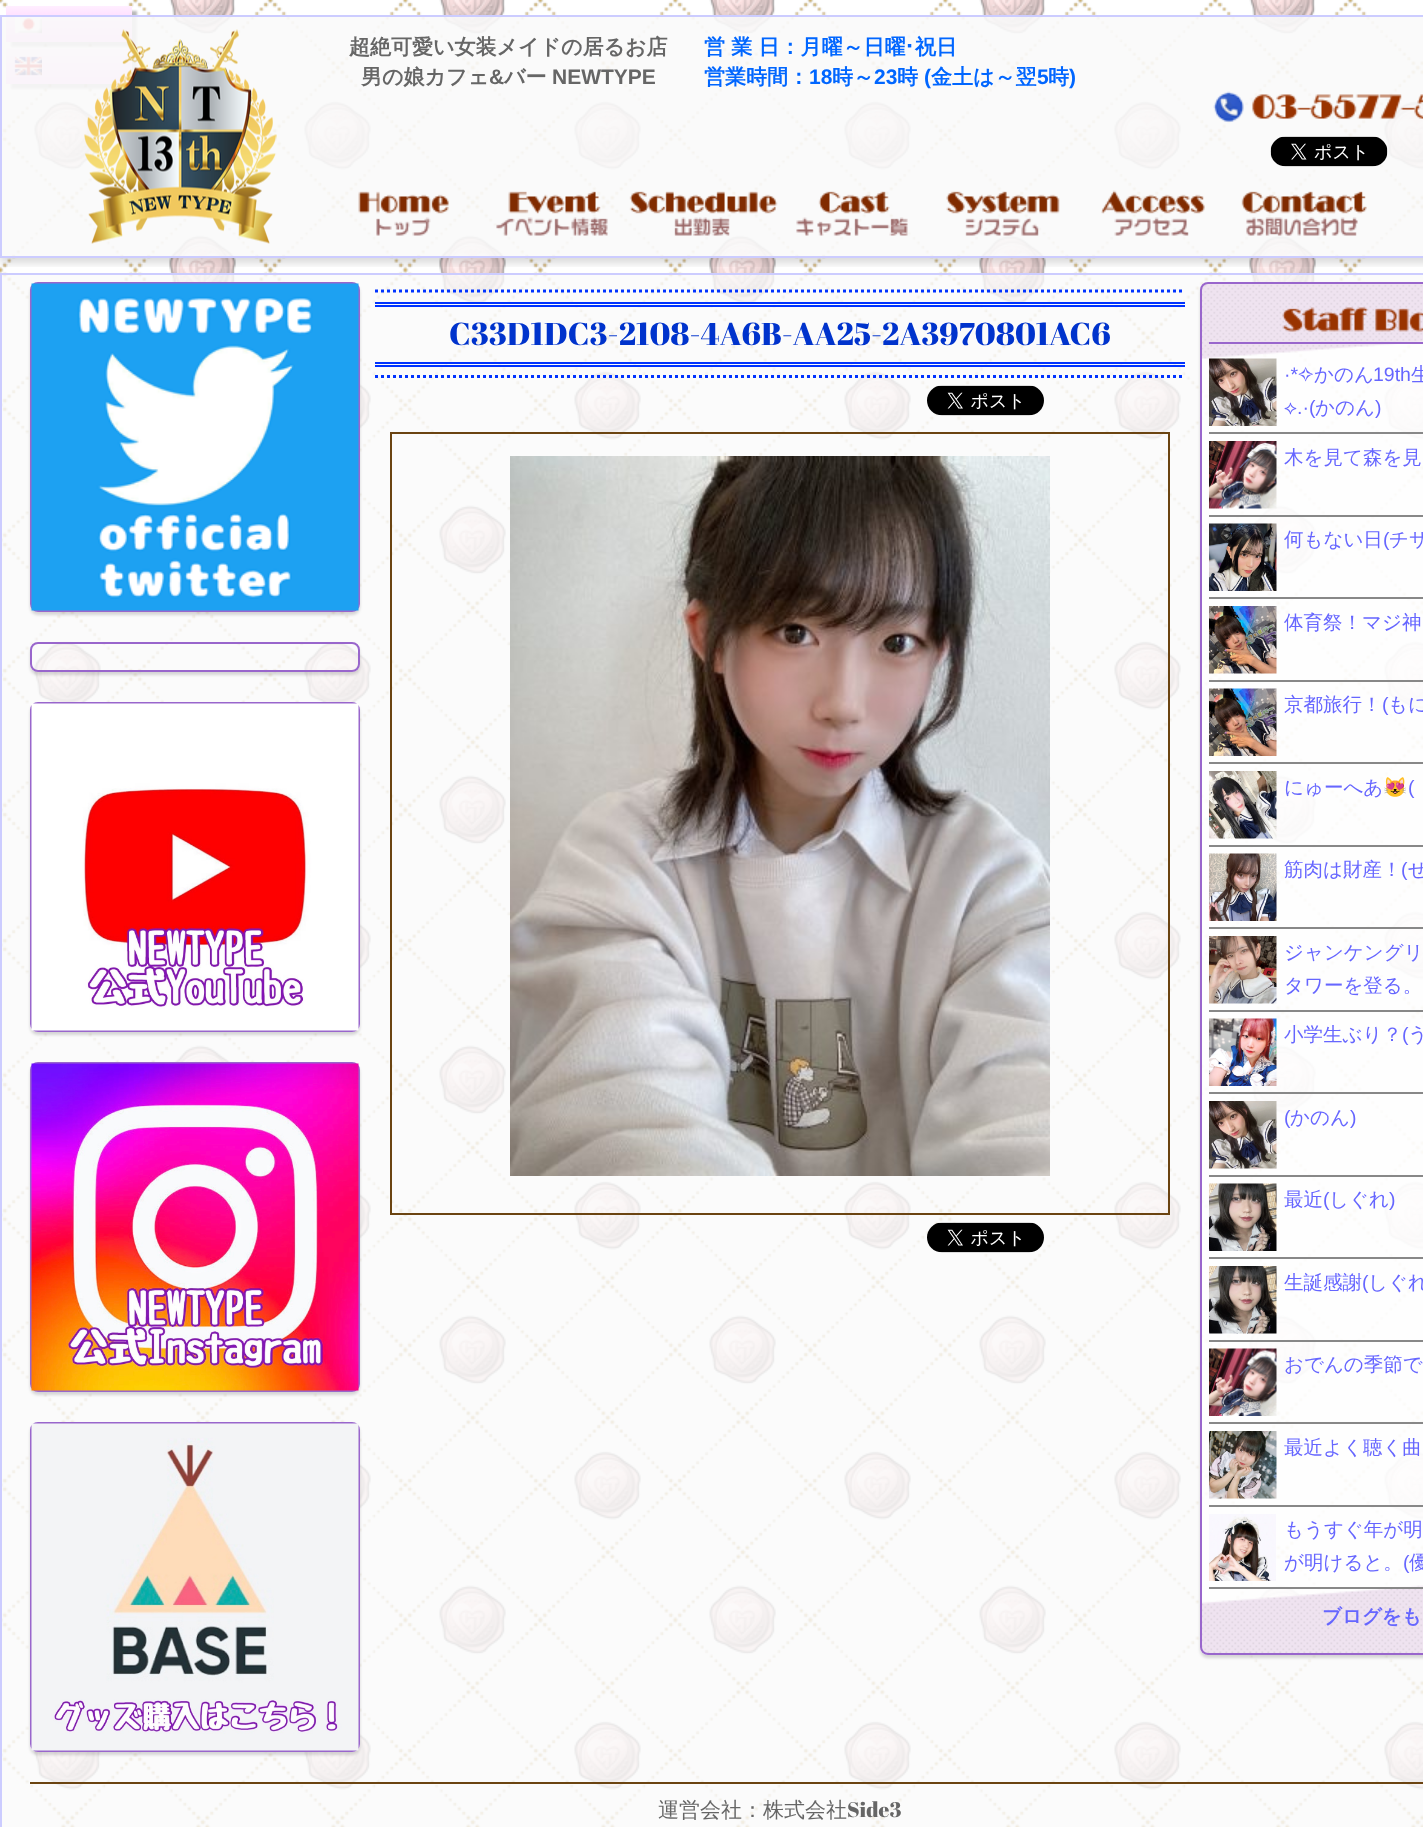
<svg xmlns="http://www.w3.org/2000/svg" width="1423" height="1827">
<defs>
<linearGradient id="g1" gradientUnits="userSpaceOnUse" x1="69" y1="42" x2="69" y2="6"><stop offset="0" stop-color="#fbf"/><stop offset="1" stop-color="#fef"/></linearGradient>
<linearGradient id="g2" gradientUnits="userSpaceOnUse" x1="69" y1="84" x2="69" y2="48"><stop offset="0" stop-color="#fbf"/><stop offset="1" stop-color="#fef"/></linearGradient>
<clipPath id="clip1"><rect x="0" y="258" width="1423" height="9"/></clipPath>
<clipPath id="clip2"><path d="M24 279h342v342h-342zm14 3h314c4.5 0 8 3.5 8 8v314c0 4.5-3.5 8-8 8h-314c-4.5 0-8-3.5-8-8v-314c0-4.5 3.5-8 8-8z" clip-rule="evenodd"/></clipPath>
<clipPath id="clip3"><path d="M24 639h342v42h-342zm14 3h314c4.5 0 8 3.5 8 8v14c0 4.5-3.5 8-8 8h-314c-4.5 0-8-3.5-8-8v-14c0-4.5 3.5-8 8-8z" clip-rule="evenodd"/></clipPath>
<clipPath id="clip4"><path d="M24 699h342v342h-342zm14 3h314c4.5 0 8 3.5 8 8v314c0 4.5-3.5 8-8 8h-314c-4.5 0-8-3.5-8-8v-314c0-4.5 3.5-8 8-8z" clip-rule="evenodd"/></clipPath>
<clipPath id="clip5"><path d="M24 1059h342v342h-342zm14 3h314c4.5 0 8 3.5 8 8v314c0 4.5-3.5 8-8 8h-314c-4.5 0-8-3.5-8-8v-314c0-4.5 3.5-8 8-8z" clip-rule="evenodd"/></clipPath>
<clipPath id="clip6"><path d="M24 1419h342v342h-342zm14 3h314c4.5 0 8 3.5 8 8v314c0 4.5-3.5 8-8 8h-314c-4.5 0-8-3.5-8-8v-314c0-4.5 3.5-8 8-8z" clip-rule="evenodd"/></clipPath>
<clipPath id="clip7"><path d="M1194 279h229v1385h-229zm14 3h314c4.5 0 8 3.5 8 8v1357c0 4.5-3.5 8-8 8h-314c-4.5 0-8-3.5-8-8v-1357c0-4.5 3.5-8 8-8z" clip-rule="evenodd"/></clipPath>
</defs>
<rect width="100%" height="100%" fill="#fff"/>
<image x="0" y="0" width="1423" height="1827" href="media/1.png"/>
<rect x="11" y="11" width="126" height="36" fill="#64646473" filter="blur(1px)"/>
<rect x="6" y="6" width="126" height="36" fill="url(#g1)"/>
<image x="14" y="17" width="28" height="17" href="media/2.png"/>
<rect x="11" y="53" width="126" height="36" fill="#64646473" filter="blur(1px)"/>
<rect x="6" y="48" width="126" height="36" fill="url(#g2)"/>
<image x="14" y="56" width="28" height="20" href="media/3.png"/>
<g clip-path="url(#clip1)">
<rect y="20" width="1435" height="243" fill="#00000026" filter="blur(4px)"/>
</g>
<rect x="1" y="16" width="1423" height="241" fill="#fafafae6" stroke="#ccf" stroke-width="2"/>
<image x="84" y="29" width="193" height="215" href="media/4.png"/>
<text x="349" y="54" style="font-family:WenQuanYi Zen Hei;font-size:21px;font-weight:bold;fill:#666">超絶可愛い女装メイドの居るお店</text>
<text x="361" y="84" style="font-family:WenQuanYi Zen Hei;font-size:21px;font-weight:bold;fill:#666">男の娘カフェ</text>
<text x="489" y="84" style="font-family:Liberation Sans;font-size:21px;font-weight:bold;fill:#666">&amp;</text>
<text x="504" y="84" style="font-family:WenQuanYi Zen Hei;font-size:21px;font-weight:bold;fill:#666">バー</text>
<text x="552" y="84" style="font-family:Liberation Sans;font-size:21px;font-weight:bold;fill:#666">NEWTYPE</text>
<text x="704" y="54" style="font-family:WenQuanYi Zen Hei;font-size:21px;font-weight:bold;fill:#06f">営 業 日：月曜～日曜</text>
<text x="904" y="54" style="font-family:IPAPGothic;font-size:21px;font-weight:bold;fill:#06f">･</text>
<text x="915" y="54" style="font-family:WenQuanYi Zen Hei;font-size:21px;font-weight:bold;fill:#06f">祝日</text>
<text x="704" y="84" style="font-family:WenQuanYi Zen Hei;font-size:21px;font-weight:bold;fill:#06f">営業時間：</text>
<text x="809" y="84" style="font-family:Liberation Sans;font-size:21px;font-weight:bold;fill:#06f">18</text>
<text x="832" y="84" style="font-family:WenQuanYi Zen Hei;font-size:21px;font-weight:bold;fill:#06f">時～</text>
<text x="874" y="84" style="font-family:Liberation Sans;font-size:21px;font-weight:bold;fill:#06f">23</text>
<text x="897" y="84" style="font-family:WenQuanYi Zen Hei;font-size:21px;font-weight:bold;fill:#06f">時</text>
<text x="924" y="84" style="font-family:Liberation Sans;font-size:21px;font-weight:bold;fill:#06f">(</text>
<text x="931" y="84" style="font-family:WenQuanYi Zen Hei;font-size:21px;font-weight:bold;fill:#06f">金土は～翌</text>
<text x="1037" y="84" style="font-family:Liberation Sans;font-size:21px;font-weight:bold;fill:#06f">5</text>
<text x="1048" y="84" style="font-family:WenQuanYi Zen Hei;font-size:21px;font-weight:bold;fill:#06f">時</text>
<text x="1069" y="84" style="font-family:Liberation Sans;font-size:21px;font-weight:bold;fill:#06f">)</text>
<image x="1213" y="91" width="210" height="31" href="media/5.png"/>
<image x="1270" y="136" width="118" height="31" href="media/6.png"/>
<image x="358" y="191" width="91" height="45" href="media/7.png"/>
<image x="496" y="191" width="112" height="45" href="media/8.png"/>
<image x="629" y="191" width="149" height="45" href="media/9.png"/>
<image x="796" y="191" width="112" height="45" href="media/10.png"/>
<image x="946" y="191" width="114" height="45" href="media/11.png"/>
<image x="1101" y="190" width="104" height="46" href="media/12.png"/>
<image x="1241" y="191" width="126" height="45" href="media/13.png"/>
<rect x="1" y="274" width="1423" height="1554" fill="#fafafacc" stroke="#ccf" stroke-width="2"/>
<g clip-path="url(#clip2)">
<rect x="30" y="285" width="330" height="330" rx="8" fill="#00000026" filter="blur(1.5px)"/>
</g>
<rect x="31" y="283" width="328" height="328" rx="7" fill="none" stroke="#96c" stroke-width="2"/>
<image x="31" y="283" width="328" height="328" href="media/14.png"/>
<g clip-path="url(#clip3)">
<rect x="30" y="645" width="330" height="30" rx="8" fill="#00000026" filter="blur(1.5px)"/>
</g>
<rect x="31" y="643" width="328" height="28" rx="7" fill="none" stroke="#96c" stroke-width="2"/>
<g clip-path="url(#clip4)">
<rect x="30" y="705" width="330" height="330" rx="8" fill="#00000026" filter="blur(1.5px)"/>
</g>
<rect x="31" y="703" width="328" height="328" rx="7" fill="none" stroke="#96c" stroke-width="2"/>
<image x="31" y="703" width="328" height="328" href="media/15.png"/>
<g clip-path="url(#clip5)">
<rect x="30" y="1065" width="330" height="330" rx="8" fill="#00000026" filter="blur(1.5px)"/>
</g>
<rect x="31" y="1063" width="328" height="328" rx="7" fill="none" stroke="#96c" stroke-width="2"/>
<image x="31" y="1063" width="328" height="328" href="media/16.png"/>
<g clip-path="url(#clip6)">
<rect x="30" y="1425" width="330" height="330" rx="8" fill="#00000026" filter="blur(1.5px)"/>
</g>
<rect x="31" y="1423" width="328" height="328" rx="7" fill="none" stroke="#96c" stroke-width="2"/>
<image x="31" y="1423" width="328" height="328" href="media/17.png"/>
<path d="M375 291h810" fill="none" stroke="#03f" stroke-width="3" stroke-dasharray="3 3"/>
<rect x="375" y="302" width="810" height="2" fill="#03f"/>
<rect x="375" y="305" width="810" height="2" fill="#03f"/>
<text x="449" y="345" style="font-family:Abril Fatface;font-size:31.5px;fill:#03c">C33D1DC3-2108-4A6B-AA25-2A3970801AC6</text>
<rect x="375" y="362" width="810" height="2" fill="#03f"/>
<rect x="375" y="365" width="810" height="2" fill="#03f"/>
<path d="M375 376.5h810" fill="none" stroke="#03f" stroke-width="3" stroke-dasharray="3 3"/>
<image x="927" y="385" width="117" height="31" href="media/18.png"/>
<rect x="391" y="433" width="778" height="781" fill="none" stroke="#6b4411" stroke-width="2"/>
<image x="510" y="456" width="540" height="720" href="media/19.png"/>
<image x="927" y="1222" width="117" height="31" href="media/20.png"/>
<g clip-path="url(#clip7)">
<rect x="1200" y="285" width="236" height="1373" rx="8" fill="#00000026" filter="blur(1.5px)"/>
</g>
<path d="M1208 282h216v1373h-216c-4.5 0-8-3.5-8-8v-1357c0-4.5 3.5-8 8-8z" fill="#ffffffb3"/>
<image x="1200" y="283" width="223" height="1370" href="media/21.png"/>
<rect x="1201" y="283" width="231" height="1371" rx="7" fill="none" stroke="#96c" stroke-width="2"/>
<image x="1282" y="307" width="141" height="25" href="media/22.png"/>
<rect x="1209" y="342" width="214" height="2" fill="#96c"/>
<rect x="1209" y="432" width="214" height="2" fill="#888"/>
<image x="1209" y="358" width="68" height="68" href="media/23.png"/>
<text x="1284" y="381" style="font-family:Liberation Sans;font-size:19.5px;fill:#66f">·*</text>
<text x="1298" y="381" style="font-family:FreeSerif;font-size:19.5px;fill:#66f">✧</text>
<text x="1314" y="381" style="font-family:WenQuanYi Zen Hei;font-size:19.5px;font-weight:500;fill:#66f">かのん</text>
<text x="1373" y="381" style="font-family:Liberation Sans;font-size:19.5px;fill:#66f">19th</text>
<text x="1411" y="381" style="font-family:WenQuanYi Zen Hei;font-size:19.5px;font-weight:500;fill:#66f">生</text>
<text x="1284" y="414" style="font-family:FreeSerif;font-size:19.5px;fill:#66f">⟡</text>
<text x="1297" y="414" style="font-family:Liberation Sans;font-size:19.5px;fill:#66f">.·(</text>
<text x="1315" y="414" style="font-family:WenQuanYi Zen Hei;font-size:19.5px;font-weight:500;fill:#66f">かのん</text>
<text x="1375" y="414" style="font-family:Liberation Sans;font-size:19.5px;fill:#66f">)</text>
<rect x="1209" y="515" width="214" height="2" fill="#888"/>
<image x="1209" y="441" width="68" height="68" href="media/24.png"/>
<text x="1284" y="464" style="font-family:WenQuanYi Zen Hei;font-size:19.5px;font-weight:500;fill:#66f">木を見て森を見</text>
<rect x="1209" y="597" width="214" height="2" fill="#888"/>
<image x="1209" y="523" width="68" height="68" href="media/25.png"/>
<text x="1284" y="546" style="font-family:WenQuanYi Zen Hei;font-size:19.5px;font-weight:500;fill:#66f">何もない日</text>
<text x="1383" y="546" style="font-family:Liberation Sans;font-size:19.5px;fill:#66f">(</text>
<text x="1389" y="546" style="font-family:WenQuanYi Zen Hei;font-size:19.5px;font-weight:500;fill:#66f">チサ</text>
<rect x="1209" y="680" width="214" height="2" fill="#888"/>
<image x="1209" y="606" width="68" height="68" href="media/26.png"/>
<text x="1284" y="629" style="font-family:WenQuanYi Zen Hei;font-size:19.5px;font-weight:500;fill:#66f">体育祭！マジ神</text>
<rect x="1209" y="762" width="214" height="2" fill="#888"/>
<image x="1209" y="688" width="68" height="68" href="media/27.png"/>
<text x="1284" y="711" style="font-family:WenQuanYi Zen Hei;font-size:19.5px;font-weight:500;fill:#66f">京都旅行！</text>
<text x="1382" y="711" style="font-family:Liberation Sans;font-size:19.5px;fill:#66f">(</text>
<text x="1388" y="711" style="font-family:WenQuanYi Zen Hei;font-size:19.5px;font-weight:500;fill:#66f">もに</text>
<rect x="1209" y="845" width="214" height="2" fill="#888"/>
<image x="1209" y="771" width="68" height="68" href="media/28.png"/>
<text x="1284" y="794" style="font-family:WenQuanYi Zen Hei;font-size:19.5px;font-weight:500;fill:#66f">にゅーへあ</text>
<text x="1383" y="794" style="font-family:Noto Color Emoji;font-size:19.5px;fill:#66f">😻</text>
<text x="1408" y="794" style="font-family:Liberation Sans;font-size:19.5px;fill:#66f">(</text>
<rect x="1209" y="927" width="214" height="2" fill="#888"/>
<image x="1209" y="853" width="68" height="68" href="media/29.png"/>
<text x="1284" y="876" style="font-family:WenQuanYi Zen Hei;font-size:19.5px;font-weight:500;fill:#66f">筋肉は財産！</text>
<text x="1401" y="876" style="font-family:Liberation Sans;font-size:19.5px;fill:#66f">(</text>
<text x="1408" y="876" style="font-family:WenQuanYi Zen Hei;font-size:19.5px;font-weight:500;fill:#66f">せ</text>
<rect x="1209" y="1010" width="214" height="2" fill="#888"/>
<image x="1209" y="936" width="68" height="68" href="media/30.png"/>
<text x="1284" y="959" style="font-family:WenQuanYi Zen Hei;font-size:19.5px;font-weight:500;fill:#66f">ジャンケングリ</text>
<text x="1284" y="992" style="font-family:WenQuanYi Zen Hei;font-size:19.5px;font-weight:500;fill:#66f">タワーを登る。</text>
<rect x="1209" y="1092" width="214" height="2" fill="#888"/>
<image x="1209" y="1018" width="68" height="68" href="media/31.png"/>
<text x="1284" y="1041" style="font-family:WenQuanYi Zen Hei;font-size:19.5px;font-weight:500;fill:#66f">小学生ぶり？</text>
<text x="1402" y="1041" style="font-family:Liberation Sans;font-size:19.5px;fill:#66f">(</text>
<text x="1408" y="1041" style="font-family:WenQuanYi Zen Hei;font-size:19.5px;font-weight:500;fill:#66f">う</text>
<rect x="1209" y="1175" width="214" height="2" fill="#888"/>
<image x="1209" y="1101" width="68" height="68" href="media/32.png"/>
<text x="1284" y="1124" style="font-family:Liberation Sans;font-size:19.5px;fill:#66f">(</text>
<text x="1290" y="1124" style="font-family:WenQuanYi Zen Hei;font-size:19.5px;font-weight:500;fill:#66f">かのん</text>
<text x="1350" y="1124" style="font-family:Liberation Sans;font-size:19.5px;fill:#66f">)</text>
<rect x="1209" y="1257" width="214" height="2" fill="#888"/>
<image x="1209" y="1183" width="68" height="68" href="media/33.png"/>
<text x="1284" y="1206" style="font-family:WenQuanYi Zen Hei;font-size:19.5px;font-weight:500;fill:#66f">最近</text>
<text x="1323" y="1206" style="font-family:Liberation Sans;font-size:19.5px;fill:#66f">(</text>
<text x="1329" y="1206" style="font-family:WenQuanYi Zen Hei;font-size:19.5px;font-weight:500;fill:#66f">しぐれ</text>
<text x="1389" y="1206" style="font-family:Liberation Sans;font-size:19.5px;fill:#66f">)</text>
<rect x="1209" y="1340" width="214" height="2" fill="#888"/>
<image x="1209" y="1266" width="68" height="68" href="media/34.png"/>
<text x="1284" y="1289" style="font-family:WenQuanYi Zen Hei;font-size:19.5px;font-weight:500;fill:#66f">生誕感謝</text>
<text x="1362" y="1289" style="font-family:Liberation Sans;font-size:19.5px;fill:#66f">(</text>
<text x="1368" y="1289" style="font-family:WenQuanYi Zen Hei;font-size:19.5px;font-weight:500;fill:#66f">しぐれ</text>
<rect x="1209" y="1422" width="214" height="2" fill="#888"/>
<image x="1209" y="1348" width="68" height="68" href="media/35.png"/>
<text x="1284" y="1371" style="font-family:WenQuanYi Zen Hei;font-size:19.5px;font-weight:500;fill:#66f">おでんの季節で</text>
<rect x="1209" y="1505" width="214" height="2" fill="#888"/>
<image x="1209" y="1431" width="68" height="68" href="media/36.png"/>
<text x="1284" y="1454" style="font-family:WenQuanYi Zen Hei;font-size:19.5px;font-weight:500;fill:#66f">最近よく聴く曲</text>
<rect x="1209" y="1587" width="214" height="2" fill="#888"/>
<image x="1209" y="1514" width="67" height="67" href="media/37.png"/>
<text x="1284" y="1536" style="font-family:WenQuanYi Zen Hei;font-size:19.5px;font-weight:500;fill:#66f">もうすぐ年が明</text>
<text x="1284" y="1569" style="font-family:WenQuanYi Zen Hei;font-size:19.5px;font-weight:500;fill:#66f">が明けると。</text>
<text x="1403" y="1569" style="font-family:Liberation Sans;font-size:19.5px;fill:#66f">(</text>
<text x="1409" y="1569" style="font-family:WenQuanYi Zen Hei;font-size:19.5px;font-weight:500;fill:#66f">優</text>
<text x="1322" y="1623" style="font-family:WenQuanYi Zen Hei;font-size:19.5px;font-weight:bold;fill:#66f">ブログをも</text>
<rect x="30" y="1782" width="1393" height="2" fill="#6b4411"/>
<text x="658" y="1817" style="font-family:WenQuanYi Zen Hei;font-size:21px;font-weight:500;fill:#666">運営会社：株式会社</text>
<text x="847" y="1817" style="font-family:Abril Fatface;font-size:21px;fill:#666">Side3</text>
</svg>
